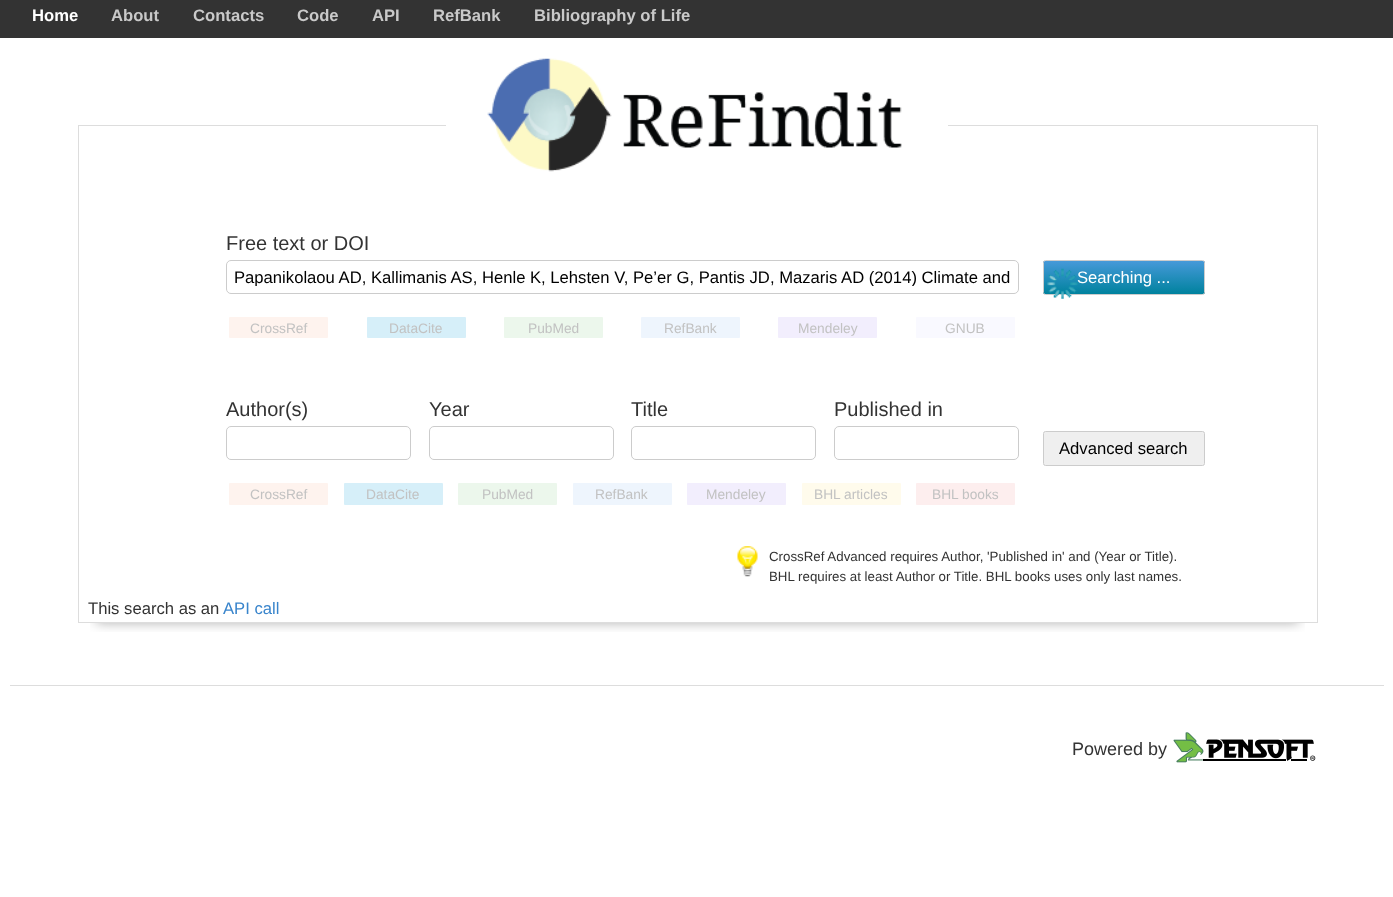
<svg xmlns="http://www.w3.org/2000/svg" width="1393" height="897">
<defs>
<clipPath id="clip1"><rect x="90" y="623" width="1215" height="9"/></clipPath>
<clipPath id="clip2"><rect x="234" y="268" width="777" height="18"/></clipPath>
<clipPath id="clip3"><rect x="1043" y="260" width="162" height="35" rx="2.5"/></clipPath>
<linearGradient id="g1" gradientUnits="userSpaceOnUse" x1="1124" y1="261" x2="1124" y2="294"><stop offset="0" stop-color="#4699d9"/><stop offset="1" stop-color="#00829e"/></linearGradient>
</defs>
<rect width="100%" height="100%" fill="#fff"/>
<rect width="1393" height="38" fill="#333"/>
<text x="32" y="21" style="font-family:Liberation Sans;font-size:16.65px;font-weight:bold;fill:#fff">Home</text>
<text x="111" y="21" style="font-family:Liberation Sans;font-size:16.65px;font-weight:bold;fill:#c9c9c9">About</text>
<text x="193" y="21" style="font-family:Liberation Sans;font-size:16.65px;font-weight:bold;fill:#c9c9c9">Contacts</text>
<text x="297" y="21" style="font-family:Liberation Sans;font-size:16.65px;font-weight:bold;fill:#c9c9c9">Code</text>
<text x="372" y="21" style="font-family:Liberation Sans;font-size:16.65px;font-weight:bold;fill:#c9c9c9">API</text>
<text x="433" y="21" style="font-family:Liberation Sans;font-size:16.65px;font-weight:bold;fill:#c9c9c9">RefBank</text>
<text x="534" y="21" style="font-family:Liberation Sans;font-size:16.65px;font-weight:bold;fill:#c9c9c9">Bibliography of Life</text>
<g clip-path="url(#clip1)">
<rect x="96" y="163" width="1203" height="460" fill="#0000004d" filter="blur(6px)"/>
</g>
<rect x="78.5" y="125.5" width="1239" height="497" fill="none" stroke="#ddd"/>
<rect x="446" y="125" width="502" height="1" fill="#fff"/>
<image x="487" y="58" width="415" height="114" href="media/1.png"/>
<text x="226" y="250" style="font-family:Liberation Sans;font-size:20px;fill:#333">Free text or DOI</text>
<rect x="226.5" y="260.5" width="792" height="33" rx="4.5" fill="none" stroke="#ccc"/>
<g clip-path="url(#clip2)">
<text x="234" y="283" style="font-family:Liberation Sans;font-size:16.65px;fill:#000">Papanikolaou AD, Kallimanis AS, Henle K, Lehsten V, Pe’er G, Pantis JD, Mazaris AD (2014) Climate and</text>
</g>
<g clip-path="url(#clip3)">
<rect x="1043" y="261" width="162" height="33" fill="url(#g1)"/>
</g>
<rect x="1043.5" y="260.5" width="161" height="34" rx="2" fill="none" stroke="#ccc"/>
<text x="1077" y="283" style="font-family:Liberation Sans;font-size:16.65px;fill:#fff">Searching ...</text>
<image x="1047" y="268" width="31" height="31" href="media/2.png"/>
<rect x="227.5" y="315.5" width="102" height="24" rx="2.5" fill="#fef3ee" stroke="#fff" stroke-width="3"/>
<text x="250" y="333" style="font-family:Liberation Sans;font-size:13.75px;fill:#c2c2c2">CrossRef</text>
<rect x="365.5" y="315.5" width="102" height="24" rx="2.5" fill="#d6eff9" stroke="#fff" stroke-width="3"/>
<text x="389" y="333" style="font-family:Liberation Sans;font-size:13.75px;fill:#c2c2c2">DataCite</text>
<rect x="502.5" y="315.5" width="102" height="24" rx="2.5" fill="#ecf7ec" stroke="#fff" stroke-width="3"/>
<text x="528" y="333" style="font-family:Liberation Sans;font-size:13.75px;fill:#c2c2c2">PubMed</text>
<rect x="639.5" y="315.5" width="102" height="24" rx="2.5" fill="#eef5fd" stroke="#fff" stroke-width="3"/>
<text x="664" y="333" style="font-family:Liberation Sans;font-size:13.75px;fill:#c2c2c2">RefBank</text>
<rect x="776.5" y="315.5" width="102" height="24" rx="2.5" fill="#f2eefd" stroke="#fff" stroke-width="3"/>
<text x="798" y="333" style="font-family:Liberation Sans;font-size:13.75px;fill:#c2c2c2">Mendeley</text>
<rect x="914.5" y="315.5" width="102" height="24" rx="2.5" fill="#f9f9ff" stroke="#fff" stroke-width="3"/>
<text x="945" y="333" style="font-family:Liberation Sans;font-size:13.75px;fill:#c2c2c2">GNUB</text>
<text x="226" y="416" style="font-family:Liberation Sans;font-size:20px;fill:#333">Author(s)</text>
<rect x="226.5" y="426.5" width="184" height="33" rx="4.5" fill="none" stroke="#ccc"/>
<text x="429" y="416" style="font-family:Liberation Sans;font-size:20px;fill:#333">Year</text>
<rect x="429.5" y="426.5" width="184" height="33" rx="4.5" fill="none" stroke="#ccc"/>
<text x="631" y="416" style="font-family:Liberation Sans;font-size:20px;fill:#333">Title</text>
<rect x="631.5" y="426.5" width="184" height="33" rx="4.5" fill="none" stroke="#ccc"/>
<text x="834" y="416" style="font-family:Liberation Sans;font-size:20px;fill:#333">Published in</text>
<rect x="834.5" y="426.5" width="184" height="33" rx="4.5" fill="none" stroke="#ccc"/>
<rect x="1043.5" y="431.5" width="161" height="34" rx="2" fill="#efefef" stroke="#ccc"/>
<text x="1059" y="454" style="font-family:Liberation Sans;font-size:16.65px;fill:#000">Advanced search</text>
<rect x="227.5" y="481.5" width="102" height="25" rx="2.5" fill="#fef3ee" stroke="#fff" stroke-width="3"/>
<text x="250" y="499" style="font-family:Liberation Sans;font-size:13.75px;fill:#c2c2c2">CrossRef</text>
<rect x="342.5" y="481.5" width="102" height="25" rx="2.5" fill="#d6eff9" stroke="#fff" stroke-width="3"/>
<text x="366" y="499" style="font-family:Liberation Sans;font-size:13.75px;fill:#c2c2c2">DataCite</text>
<rect x="456.5" y="481.5" width="102" height="25" rx="2.5" fill="#ecf7ec" stroke="#fff" stroke-width="3"/>
<text x="482" y="499" style="font-family:Liberation Sans;font-size:13.75px;fill:#c2c2c2">PubMed</text>
<rect x="571.5" y="481.5" width="102" height="25" rx="2.5" fill="#eef5fd" stroke="#fff" stroke-width="3"/>
<text x="595" y="499" style="font-family:Liberation Sans;font-size:13.75px;fill:#c2c2c2">RefBank</text>
<rect x="685.5" y="481.5" width="102" height="25" rx="2.5" fill="#f2eefd" stroke="#fff" stroke-width="3"/>
<text x="706" y="499" style="font-family:Liberation Sans;font-size:13.75px;fill:#c2c2c2">Mendeley</text>
<rect x="800.5" y="481.5" width="102" height="25" rx="2.5" fill="#fffbec" stroke="#fff" stroke-width="3"/>
<text x="814" y="499" style="font-family:Liberation Sans;font-size:13.75px;fill:#c2c2c2">BHL articles</text>
<rect x="914.5" y="481.5" width="102" height="25" rx="2.5" fill="#fdeeee" stroke="#fff" stroke-width="3"/>
<text x="932" y="499" style="font-family:Liberation Sans;font-size:13.75px;fill:#c2c2c2">BHL books</text>
<image x="737" y="546" width="21" height="31" href="media/3.png"/>
<text x="769" y="561" style="font-family:Liberation Sans;font-size:13.3px;fill:#333">CrossRef Advanced requires Author, 'Published in' and (Year or Title).</text>
<text x="769" y="581" style="font-family:Liberation Sans;font-size:13.3px;fill:#333">BHL requires at least Author or Title. BHL books uses only last names.</text>
<text x="88" y="614" style="font-family:Liberation Sans;font-size:16.65px;fill:#333">This search as an</text>
<text x="223" y="614" style="font-family:Liberation Sans;font-size:16.65px;fill:#3985cc">API call</text>
<rect x="10" y="685" width="1374" height="1" fill="#ddd"/>
<text x="1072" y="755" style="font-family:Liberation Sans;font-size:18px;fill:#333">Powered by</text>
<image x="1173" y="732" width="143" height="31" href="media/4.png"/>
</svg>
